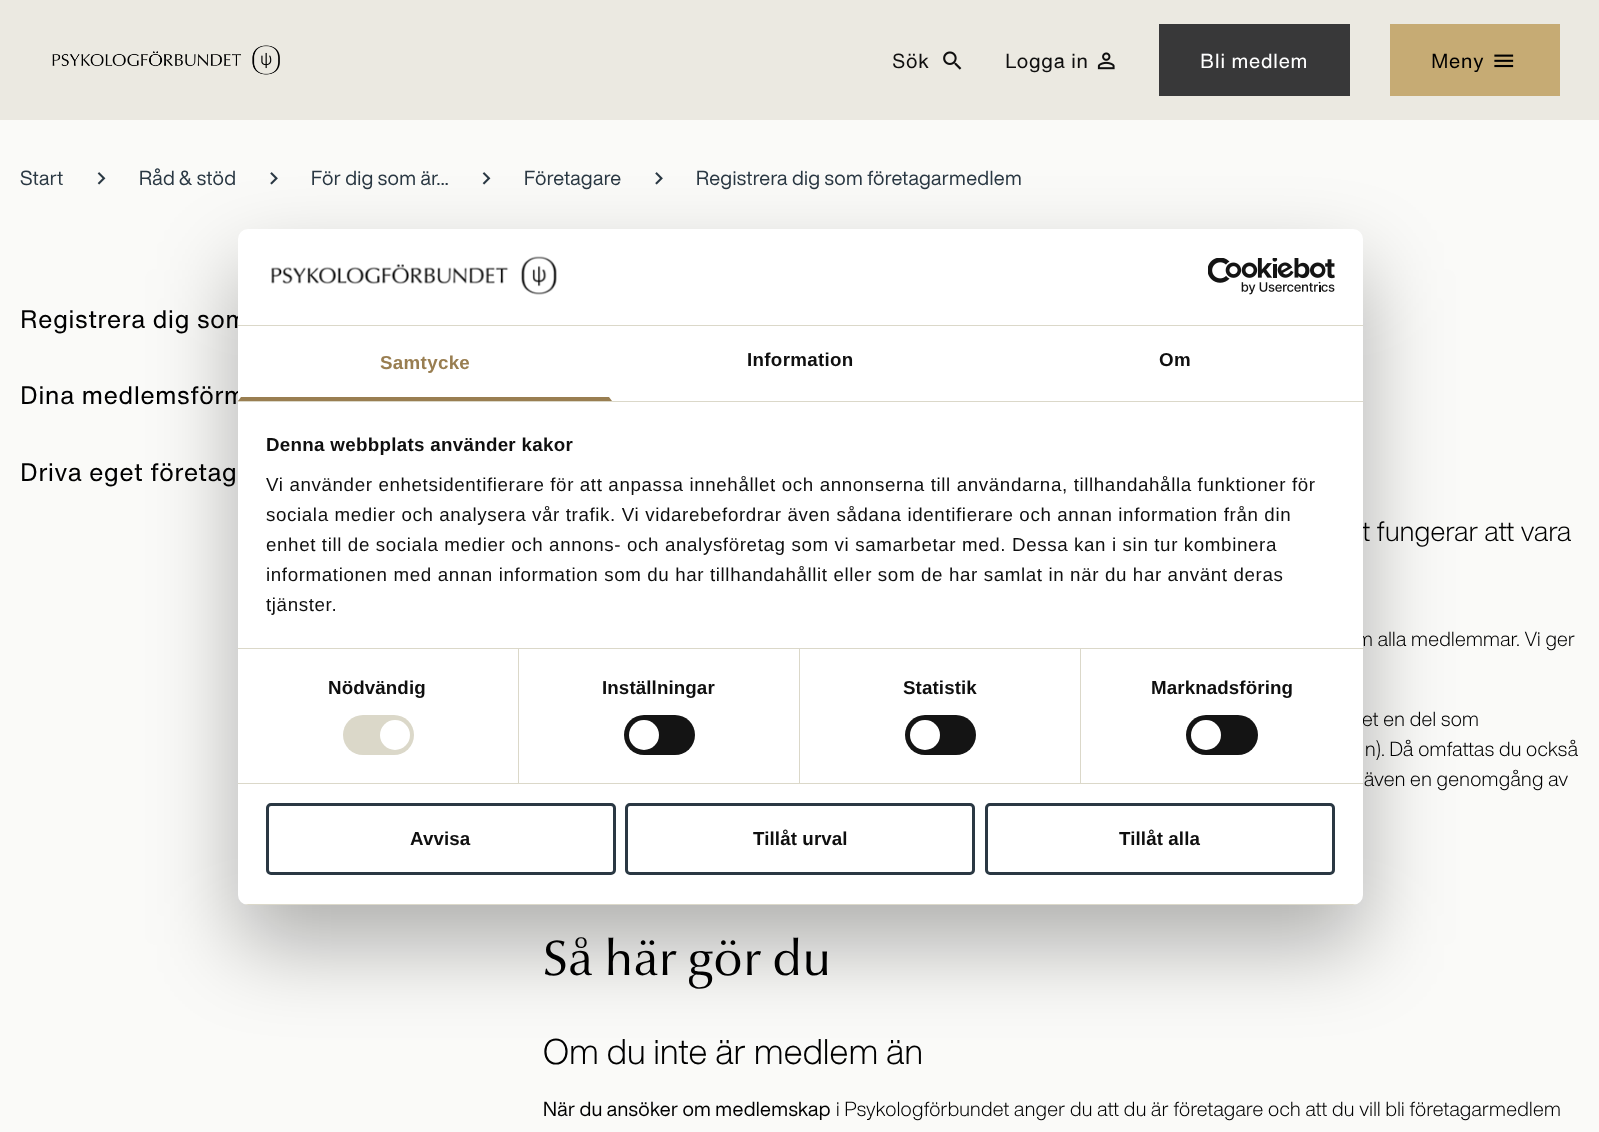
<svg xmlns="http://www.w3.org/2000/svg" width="1599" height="1132">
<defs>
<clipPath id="clip1"><rect x="238" y="229" width="1125" height="676" rx="10"/></clipPath>
</defs>
<rect width="100%" height="100%" fill="#fafaf8"/>
<rect width="1599" height="120" fill="#ebe9e1"/>
<image x="52" y="45" width="228" height="30" href="media/1.png"/>
<text x="892" y="68" style="font-family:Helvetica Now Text;font-size:20px;letter-spacing:0.32px;fill:#0f0f0f">Sök</text>
<image x="943" y="51" width="19" height="19" href="media/2.png"/>
<text x="1005" y="68" style="font-family:Helvetica Now Text;font-size:20px;letter-spacing:0.32px;fill:#0f0f0f">Logga in</text>
<image x="1097" y="52" width="18" height="18" href="media/3.png"/>
<rect x="1159" y="24" width="191" height="72" fill="#383839"/>
<text x="1200" y="68" style="font-family:Helvetica Now Text;font-size:20px;letter-spacing:0.32px;fill:#fff">Bli medlem</text>
<rect x="1390" y="24" width="170" height="72" fill="#c6ab74"/>
<text x="1431" y="68" style="font-family:Helvetica Now Text;font-size:20px;letter-spacing:0.32px;fill:#000">Meny</text>
<image x="1494" y="54" width="20" height="14" href="media/4.png"/>
<text x="20" y="185" style="font-family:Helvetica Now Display;font-size:20px;letter-spacing:0.32px;fill:#2a3843">Start</text>
<image x="97" y="172" width="9" height="13" href="media/5.png"/>
<text x="139" y="185" style="font-family:Helvetica Now Display;font-size:20px;letter-spacing:0.32px;fill:#2a3843">Råd &amp; stöd</text>
<image x="270" y="172" width="8" height="13" href="media/6.png"/>
<text x="311" y="185" style="font-family:Helvetica Now Display;font-size:20px;letter-spacing:0.32px;fill:#2a3843">För dig som är...</text>
<image x="482" y="172" width="9" height="13" href="media/5.png"/>
<text x="524" y="185" style="font-family:Helvetica Now Display;font-size:20px;letter-spacing:0.32px;fill:#2a3843">Företagare</text>
<image x="655" y="172" width="8" height="13" href="media/6.png"/>
<text x="696" y="185" style="font-family:Helvetica Now Display;font-size:20px;letter-spacing:0.32px;fill:#2a3843">Registrera dig som företagarmedlem</text>
<text x="20" y="328" style="font-family:Helvetica Now Text;font-size:25px;letter-spacing:0.32px;fill:#000">Registrera dig som</text>
<text x="20" y="404" style="font-family:Helvetica Now Text;font-size:25px;letter-spacing:0.32px;fill:#000">Dina medlemsförm</text>
<text x="20" y="481" style="font-family:Helvetica Now Text;font-size:25px;letter-spacing:0.32px;fill:#000">Driva eget företag</text>
<text x="1362" y="541" style="font-family:Helvetica Now Display;font-size:27.5px;font-weight:300;letter-spacing:0.32px;fill:#000">t fungerar att vara</text>
<text x="1356" y="646" style="font-family:Helvetica Now Display;font-size:20px;font-weight:300;letter-spacing:0.32px;fill:#000">m alla medlemmar. Vi ger</text>
<text x="1362" y="726" style="font-family:Helvetica Now Display;font-size:20px;font-weight:300;letter-spacing:0.32px;fill:#000">et en del som</text>
<text x="1365" y="756" style="font-family:Helvetica Now Display;font-size:20px;font-weight:300;letter-spacing:0.32px;fill:#000">n). Då omfattas du också</text>
<text x="1364" y="786" style="font-family:Helvetica Now Display;font-size:20px;font-weight:300;letter-spacing:0.32px;fill:#000">även en genomgång av</text>
<text x="543" y="975" style="font-family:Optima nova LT;font-size:50px;letter-spacing:0.32px;fill:#000">Så här gör du</text>
<text x="543" y="1064" style="font-family:Helvetica Now Display;font-size:35px;font-weight:300;letter-spacing:0.32px;fill:#000">Om du inte är medlem än</text>
<text x="543" y="1116" style="font-family:Helvetica Now Display;font-size:20px;letter-spacing:0.32px;fill:#000">När du ansöker om medlemskap</text>
<text x="836" y="1116" style="font-family:Helvetica Now Display;font-size:20px;font-weight:300;letter-spacing:0.32px;fill:#000">i Psykologförbundet anger du att du är företagare och att du vill bli företagarmedlem</text>
<rect x="238" y="269" width="1125" height="676" rx="10" fill="#0000004d" filter="blur(42.5px)"/>
<rect x="238" y="229" width="1125" height="676" rx="10" fill="#fff"/>
<rect x="238" y="325" width="1125" height="1" fill="#dbd8c9"/>
<image x="271" y="256" width="286" height="39" href="media/7.png"/>
<image x="1208" y="258" width="127" height="37" href="media/8.png"/>
<rect x="238" y="401" width="1125" height="1" fill="#dbd8c9"/>
<path d="M612 401h-374l3-4h368z" fill="#997e51"/>
<text x="380" y="369" style="font-family:Liberation Sans;font-size:18.75px;font-weight:bold;letter-spacing:0.32px;fill:#997e51">Samtycke</text>
<text x="747" y="366" style="font-family:Liberation Sans;font-size:18.75px;font-weight:bold;letter-spacing:0.32px;fill:#0f0f0f">Information</text>
<text x="1159" y="366" style="font-family:Liberation Sans;font-size:18.75px;font-weight:bold;letter-spacing:0.32px;fill:#0f0f0f">Om</text>
<rect x="238" y="648" width="1125" height="1" fill="#dbd8c9"/>
<text x="266" y="451" style="font-family:Liberation Sans;font-size:18.75px;font-weight:bold;letter-spacing:0.3px;fill:#0f0f0f">Denna webbplats använder kakor</text>
<text x="266" y="491" style="font-family:Liberation Sans;font-size:18.75px;letter-spacing:0.62px;fill:#0f0f0f">Vi använder enhetsidentifierare för att anpassa innehållet och annonserna till användarna, tillhandahålla funktioner för</text>
<text x="266" y="521" style="font-family:Liberation Sans;font-size:18.75px;letter-spacing:0.62px;fill:#0f0f0f">sociala medier och analysera vår trafik. Vi vidarebefordrar även sådana identifierare och annan information från din</text>
<text x="266" y="551" style="font-family:Liberation Sans;font-size:18.75px;letter-spacing:0.62px;fill:#0f0f0f">enhet till de sociala medier och annons- och analysföretag som vi samarbetar med. Dessa kan i sin tur kombinera</text>
<text x="266" y="581" style="font-family:Liberation Sans;font-size:18.75px;letter-spacing:0.62px;fill:#0f0f0f">informationen med annan information som du har tillhandahållit eller som de har samlat in när du har använt deras</text>
<text x="266" y="611" style="font-family:Liberation Sans;font-size:18.75px;letter-spacing:0.62px;fill:#0f0f0f">tjänster.</text>
<rect x="238" y="783" width="1125" height="1" fill="#dbd8c9"/>
<rect x="518" y="649" width="1" height="134" fill="#dbd8c9"/>
<text x="328" y="694" style="font-family:Liberation Sans;font-size:18.75px;font-weight:bold;letter-spacing:0.1px;fill:#0f0f0f">Nödvändig</text>
<rect x="343" y="715" width="71" height="40" rx="20" fill="#dbd8c9"/>
<circle cx="395" cy="735" r="15" fill="#fff"/>
<rect x="799" y="649" width="1" height="134" fill="#dbd8c9"/>
<text x="602" y="694" style="font-family:Liberation Sans;font-size:18.75px;font-weight:bold;letter-spacing:0.1px;fill:#0f0f0f">Inställningar</text>
<rect x="624" y="715" width="71" height="40" rx="20" fill="#141414"/>
<circle cx="644" cy="735" r="15" fill="#fff"/>
<rect x="1080" y="649" width="1" height="134" fill="#dbd8c9"/>
<text x="903" y="694" style="font-family:Liberation Sans;font-size:18.75px;font-weight:bold;letter-spacing:0.1px;fill:#0f0f0f">Statistik</text>
<rect x="905" y="715" width="71" height="40" rx="20" fill="#141414"/>
<circle cx="925" cy="735" r="15" fill="#fff"/>
<text x="1151" y="694" style="font-family:Liberation Sans;font-size:18.75px;font-weight:bold;letter-spacing:0.1px;fill:#0f0f0f">Marknadsföring</text>
<rect x="1186" y="715" width="72" height="40" rx="20" fill="#141414"/>
<circle cx="1206" cy="735" r="15" fill="#fff"/>
<g clip-path="url(#clip1)">
<rect x="238" y="904" width="1125" height="1" fill="#dbd8c9"/>
</g>
<rect x="267.5" y="804.5" width="347" height="69" rx="3.5" fill="none" stroke="#2a3843" stroke-width="3"/>
<text x="410" y="845" style="font-family:Liberation Sans;font-size:18.75px;font-weight:bold;letter-spacing:0.1px;fill:#0f0f0f">Avvisa</text>
<rect x="626.5" y="804.5" width="347" height="69" rx="3.5" fill="none" stroke="#2a3843" stroke-width="3"/>
<text x="753" y="845" style="font-family:Liberation Sans;font-size:18.75px;font-weight:bold;letter-spacing:0.1px;fill:#0f0f0f">Tillåt urval</text>
<rect x="986.5" y="804.5" width="347" height="69" rx="3.5" fill="none" stroke="#2a3843" stroke-width="3"/>
<text x="1119" y="845" style="font-family:Liberation Sans;font-size:18.75px;font-weight:bold;letter-spacing:0.1px;fill:#0f0f0f">Tillåt alla</text>
</svg>
